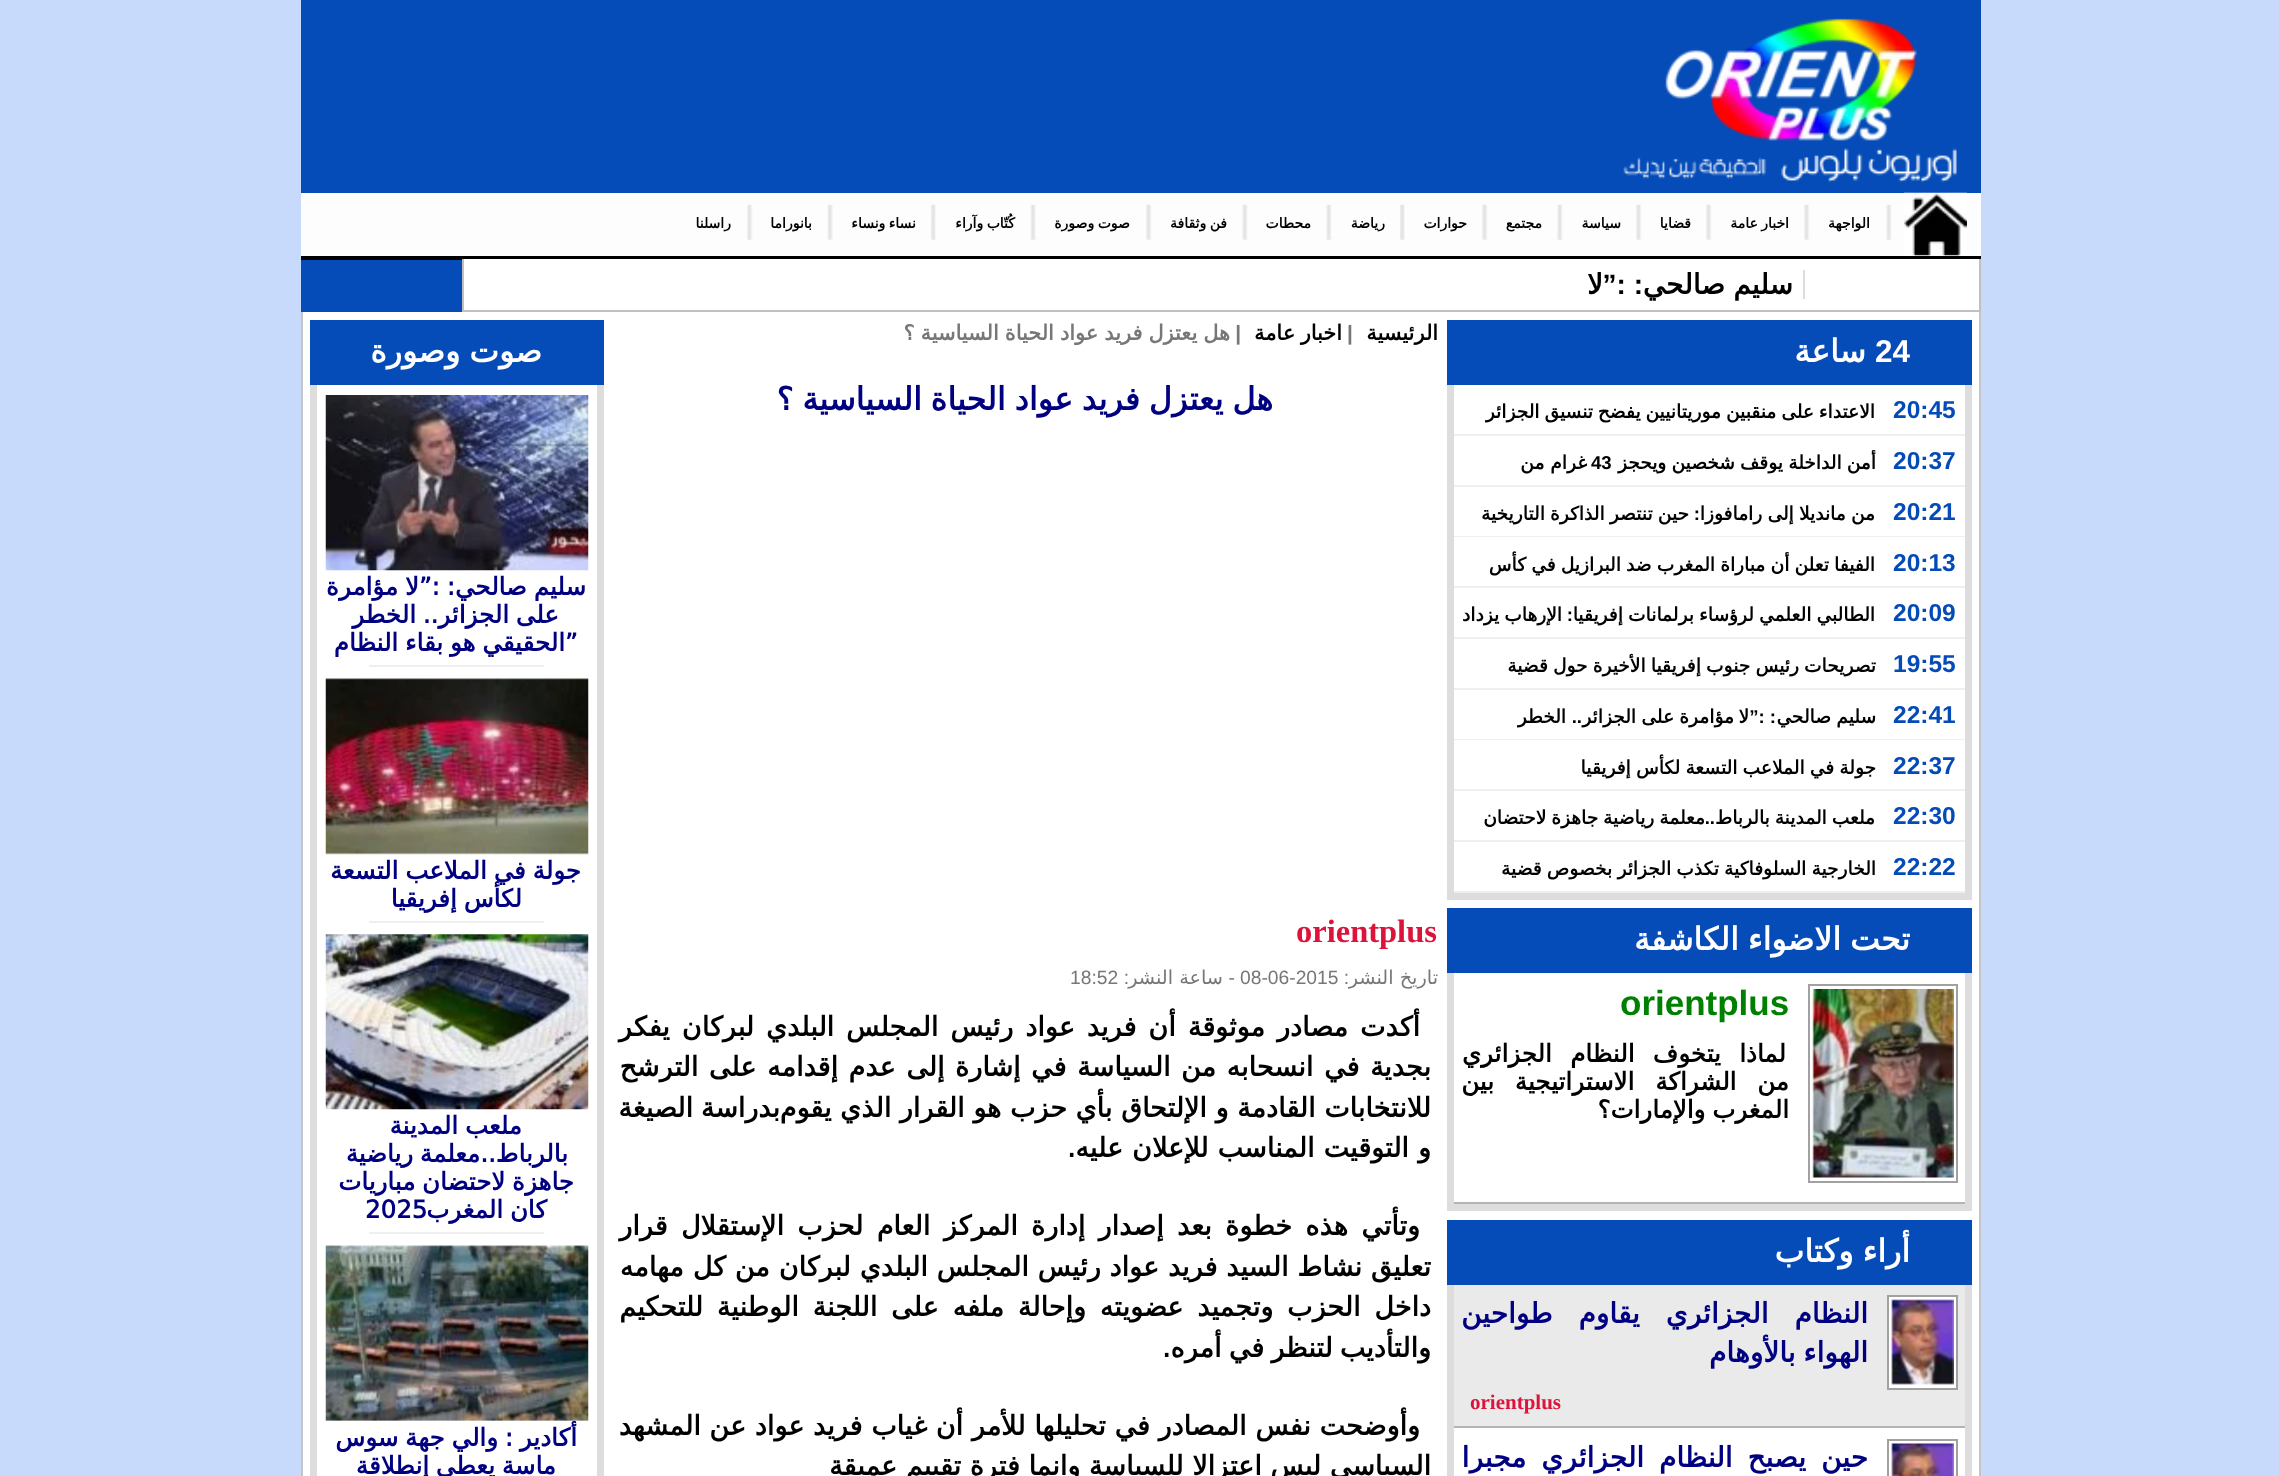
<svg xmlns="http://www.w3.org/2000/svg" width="2279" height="1476">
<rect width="100%" height="100%" fill="#c7dafc"/>
<rect x="303" y="312" width="1676" height="1164" fill="#fff"/>
<rect x="301" width="1680" height="312" fill="#054cb8"/>
<image x="1623" y="18" width="334" height="165" href="media/1.png"/>
<rect x="301" y="193" width="1680" height="63" fill="#fdfdfd"/>
<rect x="301" y="256" width="1680" height="4" fill="#000"/>
<image x="1904" y="192" width="63" height="64" href="media/2.png"/>
<image x="1886" y="204" width="6" height="36" href="media/3.png"/>
<text x="1870" y="228" style="font-family:DejaVu Sans;font-size:14px;font-weight:bold;direction:rtl;fill:#000">الواجهة</text>
<image x="1804" y="204" width="6" height="36" href="media/4.png"/>
<text x="1789" y="228" word-spacing="-1" style="font-family:DejaVu Sans;font-size:14px;font-weight:bold;direction:rtl;fill:#000">اخبار عامة</text>
<image x="1706" y="204" width="6" height="36" href="media/4.png"/>
<text x="1691" y="228" style="font-family:DejaVu Sans;font-size:14px;font-weight:bold;direction:rtl;fill:#000">قضايا</text>
<image x="1636" y="204" width="6" height="36" href="media/4.png"/>
<text x="1621" y="228" style="font-family:DejaVu Sans;font-size:14px;font-weight:bold;direction:rtl;fill:#000">سياسة</text>
<image x="1557" y="204" width="6" height="36" href="media/5.png"/>
<text x="1542" y="228" style="font-family:DejaVu Sans;font-size:14px;font-weight:bold;direction:rtl;fill:#000">مجتمع</text>
<image x="1482" y="204" width="6" height="36" href="media/4.png"/>
<text x="1467" y="228" style="font-family:DejaVu Sans;font-size:14px;font-weight:bold;direction:rtl;fill:#000">حوارات</text>
<image x="1400" y="204" width="5" height="36" href="media/6.png"/>
<text x="1385" y="228" style="font-family:DejaVu Sans;font-size:14px;font-weight:bold;direction:rtl;fill:#000">رياضة</text>
<image x="1326" y="204" width="6" height="36" href="media/5.png"/>
<text x="1311" y="228" style="font-family:DejaVu Sans;font-size:14px;font-weight:bold;direction:rtl;fill:#000">محطات</text>
<image x="1242" y="204" width="6" height="36" href="media/5.png"/>
<text x="1227" y="228" word-spacing="-1" style="font-family:DejaVu Sans;font-size:14px;font-weight:bold;direction:rtl;fill:#000">فن وثقافة</text>
<image x="1146" y="204" width="6" height="36" href="media/4.png"/>
<text x="1130" y="228" word-spacing="-1" style="font-family:DejaVu Sans;font-size:14px;font-weight:bold;direction:rtl;fill:#000">صوت وصورة</text>
<image x="1030" y="204" width="6" height="36" href="media/7.png"/>
<text x="1015" y="228" word-spacing="-1" style="font-family:DejaVu Sans;font-size:14px;font-weight:bold;direction:rtl;fill:#000">كُتّاب وآراء</text>
<image x="931" y="204" width="5" height="36" href="media/6.png"/>
<text x="916" y="228" word-spacing="-1" style="font-family:DejaVu Sans;font-size:14px;font-weight:bold;direction:rtl;fill:#000">نساء ونساء</text>
<image x="827" y="204" width="6" height="36" href="media/8.png"/>
<text x="812" y="228" style="font-family:DejaVu Sans;font-size:14px;font-weight:bold;direction:rtl;fill:#000">بانوراما</text>
<image x="747" y="204" width="6" height="36" href="media/4.png"/>
<text x="731" y="228" style="font-family:DejaVu Sans;font-size:14px;font-weight:bold;direction:rtl;fill:#000">راسلنا</text>
<rect x="464" y="259" width="1515" height="51" fill="#fff"/>
<rect x="1979" y="259" width="2" height="53" fill="#c0c0c0"/>
<rect x="462" y="310" width="1519" height="2" fill="#c0c0c0"/>
<rect x="462" y="259" width="2" height="53" fill="#c0c0c0"/>
<rect x="1803" y="270" width="2" height="29" fill="#ddd"/>
<text x="1793" y="294" style="font-family:DejaVu Sans;font-size:28px;font-weight:bold;direction:rtl;fill:#000">سليم</text>
<text x="1725" y="294" style="font-family:DejaVu Sans;font-size:28px;font-weight:bold;direction:rtl;fill:#000">صالحي</text>
<text x="1643" y="294" style="font-family:Liberation Sans;font-size:28px;font-weight:bold;direction:rtl;fill:#000">: :”</text>
<text x="1603" y="294" style="font-family:DejaVu Sans;font-size:28px;font-weight:bold;direction:rtl;fill:#000">لا</text>
<rect x="1979" y="312" width="2" height="1164" fill="#c5c5c5"/>
<rect x="301" y="312" width="2" height="1164" fill="#c5c5c5"/>
<rect x="1447" y="320" width="525" height="65" fill="#054cb8"/>
<text x="1875" y="362" style="font-family:Liberation Sans;font-size:31.5px;font-weight:bold;fill:#fff">24</text>
<text x="1866" y="362" style="font-family:DejaVu Sans;font-size:31.5px;font-weight:bold;direction:rtl;fill:#fff">ساعة</text>
<rect x="1965" y="385" width="7" height="515" fill="#ddd"/>
<rect x="1447" y="893" width="525" height="7" fill="#ddd"/>
<rect x="1447" y="385" width="7" height="515" fill="#ddd"/>
<rect x="1454" y="434" width="511" height="2" fill="#efefef"/>
<text x="1893" y="418" style="font-family:Liberation Sans;font-size:24.5px;font-weight:bold;fill:#044bb7">20:45</text>
<text x="1875" y="418" word-spacing="-1" style="font-family:DejaVu Sans;font-size:18.6px;font-weight:bold;direction:rtl;fill:#000">الاعتداء على منقبين موريتانيين يفضح تنسيق الجزائر</text>
<rect x="1454" y="485" width="511" height="2" fill="#efefef"/>
<text x="1893" y="469" style="font-family:Liberation Sans;font-size:24.5px;font-weight:bold;fill:#044bb7">20:37</text>
<text x="1876" y="469" word-spacing="-0.75" style="font-family:DejaVu Sans;font-size:18.6px;font-weight:bold;direction:rtl;fill:#000">أمن الداخلة يوقف شخصين ويحجز</text>
<text x="1591" y="469" style="font-family:Liberation Sans;font-size:18.6px;font-weight:bold;fill:#000">43</text>
<text x="1587" y="469" style="font-family:DejaVu Sans;font-size:18.6px;font-weight:bold;direction:rtl;fill:#000">غرام من</text>
<rect x="1454" y="536" width="511" height="1" fill="#efefef"/>
<text x="1893" y="520" style="font-family:Liberation Sans;font-size:24.5px;font-weight:bold;fill:#044bb7">20:21</text>
<text x="1875" y="520" word-spacing="-0.75" style="font-family:DejaVu Sans;font-size:18.6px;font-weight:bold;direction:rtl;fill:#000">من مانديلا إلى رامافوزا</text>
<text x="1700" y="520" style="font-family:Liberation Sans;font-size:18.6px;font-weight:bold;direction:rtl;fill:#000">:</text>
<text x="1689" y="520" word-spacing="-0.75" style="font-family:DejaVu Sans;font-size:18.6px;font-weight:bold;direction:rtl;fill:#000">حين تنتصر الذاكرة التاريخية</text>
<rect x="1454" y="586" width="511" height="2" fill="#efefef"/>
<text x="1893" y="571" style="font-family:Liberation Sans;font-size:24.5px;font-weight:bold;fill:#044bb7">20:13</text>
<text x="1875" y="571" word-spacing="-0.75" style="font-family:DejaVu Sans;font-size:18.6px;font-weight:bold;direction:rtl;fill:#000">الفيفا تعلن أن مباراة المغرب ضد البرازيل في كأس</text>
<rect x="1454" y="637" width="511" height="2" fill="#efefef"/>
<text x="1893" y="621" style="font-family:Liberation Sans;font-size:24.5px;font-weight:bold;fill:#044bb7">20:09</text>
<text x="1875" y="621" word-spacing="-0.75" style="font-family:DejaVu Sans;font-size:18.6px;font-weight:bold;direction:rtl;fill:#000">الطالبي العلمي لرؤساء برلمانات إفريقيا</text>
<text x="1573" y="621" style="font-family:Liberation Sans;font-size:18.6px;font-weight:bold;direction:rtl;fill:#000">:</text>
<text x="1562" y="621" word-spacing="-0.75" style="font-family:DejaVu Sans;font-size:18.6px;font-weight:bold;direction:rtl;fill:#000">الإرهاب يزداد</text>
<rect x="1454" y="688" width="511" height="2" fill="#efefef"/>
<text x="1893" y="672" style="font-family:Liberation Sans;font-size:24.5px;font-weight:bold;fill:#044bb7">19:55</text>
<text x="1876" y="672" word-spacing="-0.75" style="font-family:DejaVu Sans;font-size:18.6px;font-weight:bold;direction:rtl;fill:#000">تصريحات رئيس جنوب إفريقيا الأخيرة حول قضية</text>
<rect x="1454" y="739" width="511" height="1" fill="#efefef"/>
<text x="1893" y="723" style="font-family:Liberation Sans;font-size:24.5px;font-weight:bold;fill:#044bb7">22:41</text>
<text x="1876" y="723" style="font-family:DejaVu Sans;font-size:18.6px;font-weight:bold;direction:rtl;fill:#000">سليم</text>
<text x="1831" y="723" style="font-family:DejaVu Sans;font-size:18.6px;font-weight:bold;direction:rtl;fill:#000">صالحي</text>
<text x="1776" y="723" style="font-family:Liberation Sans;font-size:18.6px;font-weight:bold;direction:rtl;fill:#000">: :”</text>
<text x="1749" y="723" style="font-family:DejaVu Sans;font-size:18.6px;font-weight:bold;direction:rtl;fill:#000">لا</text>
<text x="1734" y="723" style="font-family:DejaVu Sans;font-size:18.6px;font-weight:bold;direction:rtl;fill:#000">مؤامرة</text>
<text x="1674" y="723" style="font-family:DejaVu Sans;font-size:18.6px;font-weight:bold;direction:rtl;fill:#000">على</text>
<text x="1636" y="723" style="font-family:DejaVu Sans;font-size:18.6px;font-weight:bold;direction:rtl;fill:#000">الجزائر</text>
<text x="1582" y="723" style="font-family:Liberation Sans;font-size:18.6px;font-weight:bold;direction:rtl;fill:#000">..</text>
<text x="1566" y="723" style="font-family:DejaVu Sans;font-size:18.6px;font-weight:bold;direction:rtl;fill:#000">الخطر</text>
<rect x="1454" y="789" width="511" height="2" fill="#efefef"/>
<text x="1893" y="774" style="font-family:Liberation Sans;font-size:24.5px;font-weight:bold;fill:#044bb7">22:37</text>
<text x="1876" y="774" word-spacing="-0.75" style="font-family:DejaVu Sans;font-size:18.6px;font-weight:bold;direction:rtl;fill:#000">جولة في الملاعب التسعة لكأس إفريقيا</text>
<rect x="1454" y="840" width="511" height="2" fill="#efefef"/>
<text x="1893" y="824" style="font-family:Liberation Sans;font-size:24.5px;font-weight:bold;fill:#044bb7">22:30</text>
<text x="1875" y="824" word-spacing="-1" style="font-family:DejaVu Sans;font-size:18.6px;font-weight:bold;direction:rtl;fill:#000">ملعب المدينة بالرباط</text>
<text x="1705" y="824" word-spacing="-1" style="font-family:DejaVu Sans;font-size:18.6px;font-weight:bold;direction:rtl;fill:#000">معلمة رياضية جاهزة لاحتضان</text>
<text x="1715" y="824" style="font-family:Liberation Sans;font-size:18.6px;font-weight:bold;direction:rtl;fill:#000">..</text>
<rect x="1454" y="891" width="511" height="2" fill="#efefef"/>
<text x="1893" y="875" style="font-family:Liberation Sans;font-size:24.5px;font-weight:bold;fill:#044bb7">22:22</text>
<text x="1876" y="875" word-spacing="-0.75" style="font-family:DejaVu Sans;font-size:18.6px;font-weight:bold;direction:rtl;fill:#000">الخارجية السلوفاكية تكذب الجزائر بخصوص قضية</text>
<rect x="1447" y="908" width="525" height="65" fill="#054cb8"/>
<text x="1910" y="950" word-spacing="-1" style="font-family:DejaVu Sans;font-size:31.5px;font-weight:bold;direction:rtl;fill:#fff">تحت الاضواء الكاشفة</text>
<rect x="1965" y="973" width="7" height="238" fill="#ddd"/>
<rect x="1447" y="1204" width="525" height="7" fill="#ddd"/>
<rect x="1447" y="973" width="7" height="238" fill="#ddd"/>
<rect x="1454" y="1202" width="511" height="2" fill="#b4b4b4"/>
<rect x="1809" y="985" width="148" height="197" fill="none" stroke="#a1a1a1" stroke-width="2"/>
<image x="1812" y="989" width="142" height="189" href="media/9.png"/>
<text x="1620" y="1015" style="font-family:Liberation Sans;font-size:35px;font-weight:bold;fill:#008000">orientplus</text>
<text x="1786" y="1062" word-spacing="10.5" style="font-family:DejaVu Sans;font-size:24.5px;font-weight:bold;direction:rtl;fill:#000">لماذا يتخوف النظام الجزائري</text>
<text x="1789" y="1090" word-spacing="13" style="font-family:DejaVu Sans;font-size:24.5px;font-weight:bold;direction:rtl;fill:#000">من الشراكة الاستراتيجية بين</text>
<text x="1789" y="1118" word-spacing="-1" style="font-family:DejaVu Sans;font-size:24.5px;font-weight:bold;direction:rtl;fill:#000">المغرب والإمارات؟</text>
<rect x="1447" y="1220" width="525" height="65" fill="#054cb8"/>
<text x="1910" y="1262" word-spacing="-1" style="font-family:DejaVu Sans;font-size:31.5px;font-weight:bold;direction:rtl;fill:#fff">أراء وكتاب</text>
<rect x="1965" y="1285" width="7" height="191" fill="#ddd"/>
<rect x="1447" y="1285" width="7" height="191" fill="#ddd"/>
<rect x="1454" y="1285" width="511" height="141" fill="#eaeaea"/>
<rect x="1454" y="1426" width="511" height="2" fill="#b4b4b4"/>
<rect x="1888" y="1296" width="69" height="93" fill="#fff" stroke="#a1a1a1" stroke-width="2"/>
<image x="1891" y="1299" width="63" height="86" href="media/10.png"/>
<text x="1868" y="1323" word-spacing="17" style="font-family:DejaVu Sans;font-size:28px;font-weight:bold;direction:rtl;fill:#000080">النظام الجزائري يقاوم طواحين</text>
<text x="1868" y="1362" word-spacing="-1" style="font-family:DejaVu Sans;font-size:28px;font-weight:bold;direction:rtl;fill:#000080">الهواء بالأوهام</text>
<text x="1470" y="1409" style="font-family:Liberation Serif;font-size:21px;font-weight:bold;fill:#dc143c">orientplus</text>
<rect x="1888" y="1440" width="69" height="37" fill="none" stroke="#a1a1a1" stroke-width="2"/>
<image x="1891" y="1443" width="63" height="33" href="media/11.png"/>
<text x="1868" y="1467" word-spacing="6" style="font-family:DejaVu Sans;font-size:28px;font-weight:bold;direction:rtl;fill:#000080">حين يصبح النظام الجزائري مجبرا</text>
<text x="1438" y="340" style="font-family:DejaVu Sans;font-size:20.8px;font-weight:bold;direction:rtl;fill:#000">الرئيسية</text>
<text x="1347" y="340" style="font-family:Liberation Sans;font-size:20.8px;font-weight:bold;fill:#777">|</text>
<text x="1342" y="340" word-spacing="-1" style="font-family:DejaVu Sans;font-size:20.8px;font-weight:bold;direction:rtl;fill:#000">اخبار عامة</text>
<text x="1241" y="340" style="font-family:Liberation Sans;font-size:20.8px;font-weight:bold;direction:rtl;fill:#777">|</text>
<text x="1230" y="340" word-spacing="-0.5" style="font-family:DejaVu Sans;font-size:20.8px;font-weight:bold;direction:rtl;fill:#777">هل يعتزل فريد عواد الحياة السياسية ؟</text>
<text x="1273" y="410" word-spacing="-1.25" style="font-family:DejaVu Sans;font-size:31.8px;font-weight:bold;direction:rtl;fill:#000080">هل يعتزل فريد عواد الحياة السياسية ؟</text>
<text x="1296" y="942" style="font-family:Liberation Serif;font-size:32.5px;font-weight:bold;fill:#dc143c">orientplus</text>
<text x="1349" y="984" style="font-family:Liberation Sans;font-size:19.25px;direction:rtl;fill:#777">:</text>
<text x="1438" y="984" style="font-family:DejaVu Sans;font-size:19.25px;direction:rtl;fill:#777">تاريخ النشر</text>
<text x="1240" y="984" style="font-family:Liberation Sans;font-size:19.25px;fill:#777">08-06-2015</text>
<text x="1235" y="984" style="font-family:Liberation Sans;font-size:19.25px;direction:rtl;fill:#777">-</text>
<text x="1223" y="984" style="font-family:DejaVu Sans;font-size:19.25px;direction:rtl;fill:#777">ساعة النشر</text>
<text x="1129" y="984" style="font-family:Liberation Sans;font-size:19.25px;direction:rtl;fill:#777">:</text>
<text x="1070" y="984" style="font-family:Liberation Sans;font-size:19.25px;fill:#777">18:52</text>
<text x="1420" y="1036" word-spacing="3.4" style="font-family:DejaVu Sans;font-size:27px;font-weight:bold;direction:rtl;fill:#000">أكدت مصادر موثوقة أن فريد عواد رئيس المجلس البلدي لبركان يفكر</text>
<text x="1431" y="1076" word-spacing="2" style="font-family:DejaVu Sans;font-size:27px;font-weight:bold;direction:rtl;fill:#000">بجدية في انسحابه من السياسة في إشارة إلى عدم إقدامه على الترشح</text>
<text x="1431" y="1117" style="font-family:DejaVu Sans;font-size:27px;font-weight:bold;direction:rtl;fill:#000">للانتخابات القادمة و الإلتحاق بأي حزب هو القرار الذي يقوم</text>
<text x="780" y="1117" word-spacing="-1" style="font-family:DejaVu Sans;font-size:27px;font-weight:bold;direction:rtl;fill:#000">بدراسة الصيغة</text>
<text x="1431" y="1157" word-spacing="0.5" style="font-family:DejaVu Sans;font-size:27px;font-weight:bold;direction:rtl;fill:#000">و التوقيت المناسب للإعلان عليه</text>
<text x="1067" y="1157" style="font-family:DejaVu Sans;font-size:27px;font-weight:bold;fill:#000">.</text>
<text x="1420" y="1235" word-spacing="4.75" style="font-family:DejaVu Sans;font-size:27px;font-weight:bold;direction:rtl;fill:#000">وتأتي هذه خطوة بعد إصدار إدارة المركز العام لحزب الإستقلال قرار</text>
<text x="1431" y="1276" word-spacing="0.25" style="font-family:DejaVu Sans;font-size:27px;font-weight:bold;direction:rtl;fill:#000">تعليق نشاط السيد فريد عواد رئيس المجلس البلدي لبركان من كل مهامه</text>
<text x="1431" y="1316" word-spacing="5.25" style="font-family:DejaVu Sans;font-size:27px;font-weight:bold;direction:rtl;fill:#000">داخل الحزب وتجميد عضويته وإحالة ملفه على اللجنة الوطنية للتحكيم</text>
<text x="1431" y="1357" word-spacing="-1.5" style="font-family:DejaVu Sans;font-size:27px;font-weight:bold;direction:rtl;fill:#000">والتأديب لتنظر في أمره.</text>
<text x="1420" y="1435" word-spacing="0.1" style="font-family:DejaVu Sans;font-size:27px;font-weight:bold;direction:rtl;fill:#000">وأوضحت نفس المصادر في تحليلها للأمر أن غياب فريد عواد عن المشهد</text>
<text x="1431" y="1475" style="font-family:DejaVu Sans;font-size:27px;font-weight:bold;direction:rtl;fill:#000">السياسي ليس اعتزالا للسياسة وانما فترة تقييم عميقة</text>
<rect x="310" y="320" width="294" height="65" fill="#054cb8"/>
<text x="542" y="362" word-spacing="-1" style="font-family:DejaVu Sans;font-size:31.5px;font-weight:bold;direction:rtl;fill:#fff">صوت وصورة</text>
<rect x="597" y="385" width="7" height="1091" fill="#ddd"/>
<rect x="310" y="385" width="7" height="1091" fill="#ddd"/>
<image x="325" y="395" width="264" height="176" href="media/12.png"/>
<text x="586" y="595" word-spacing="-1" style="font-family:DejaVu Sans;font-size:24.5px;font-weight:bold;direction:rtl;fill:#000080">سليم صالحي: :”لا مؤامرة</text>
<text x="559" y="623" word-spacing="-1" style="font-family:DejaVu Sans;font-size:24.5px;font-weight:bold;direction:rtl;fill:#000080">على الجزائر.. الخطر</text>
<text x="565" y="651" style="font-family:DejaVu Sans;font-size:24.5px;font-weight:bold;fill:#000080">”</text>
<text x="565" y="651" word-spacing="-1" style="font-family:DejaVu Sans;font-size:24.5px;font-weight:bold;direction:rtl;fill:#000080">الحقيقي هو بقاء النظام</text>
<rect x="369" y="665" width="175" height="2" fill="#efefef"/>
<image x="325" y="678" width="264" height="177" href="media/13.png"/>
<text x="581" y="879" word-spacing="-1" style="font-family:DejaVu Sans;font-size:24.5px;font-weight:bold;direction:rtl;fill:#000080">جولة في الملاعب التسعة</text>
<text x="522" y="907" word-spacing="-1" style="font-family:DejaVu Sans;font-size:24.5px;font-weight:bold;direction:rtl;fill:#000080">لكأس إفريقيا</text>
<rect x="369" y="921" width="175" height="2" fill="#efefef"/>
<image x="325" y="934" width="264" height="176" href="media/14.png"/>
<text x="522" y="1134" word-spacing="-1" style="font-family:DejaVu Sans;font-size:24.5px;font-weight:bold;direction:rtl;fill:#000080">ملعب المدينة</text>
<text x="568" y="1162" word-spacing="-1" style="font-family:DejaVu Sans;font-size:24.5px;font-weight:bold;direction:rtl;fill:#000080">بالرباط..معلمة رياضية</text>
<text x="574" y="1190" word-spacing="-1" style="font-family:DejaVu Sans;font-size:24.5px;font-weight:bold;direction:rtl;fill:#000080">جاهزة لاحتضان مباريات</text>
<text x="547" y="1218" word-spacing="-1" style="font-family:DejaVu Sans;font-size:24.5px;font-weight:bold;direction:rtl;fill:#000080">كان المغرب</text>
<text x="365" y="1218" style="font-family:DejaVu Sans;font-size:24.5px;font-weight:bold;fill:#000080">2025</text>
<rect x="369" y="1232" width="175" height="2" fill="#efefef"/>
<image x="325" y="1245" width="264" height="176" href="media/15.png"/>
<text x="577" y="1446" word-spacing="-1" style="font-family:DejaVu Sans;font-size:24.5px;font-weight:bold;direction:rtl;fill:#000080">أكادير : والي جهة سوس</text>
<text x="556" y="1474" word-spacing="-1" style="font-family:DejaVu Sans;font-size:24.5px;font-weight:bold;direction:rtl;fill:#000080">ماسة يعطي إنطلاقة</text>
</svg>
